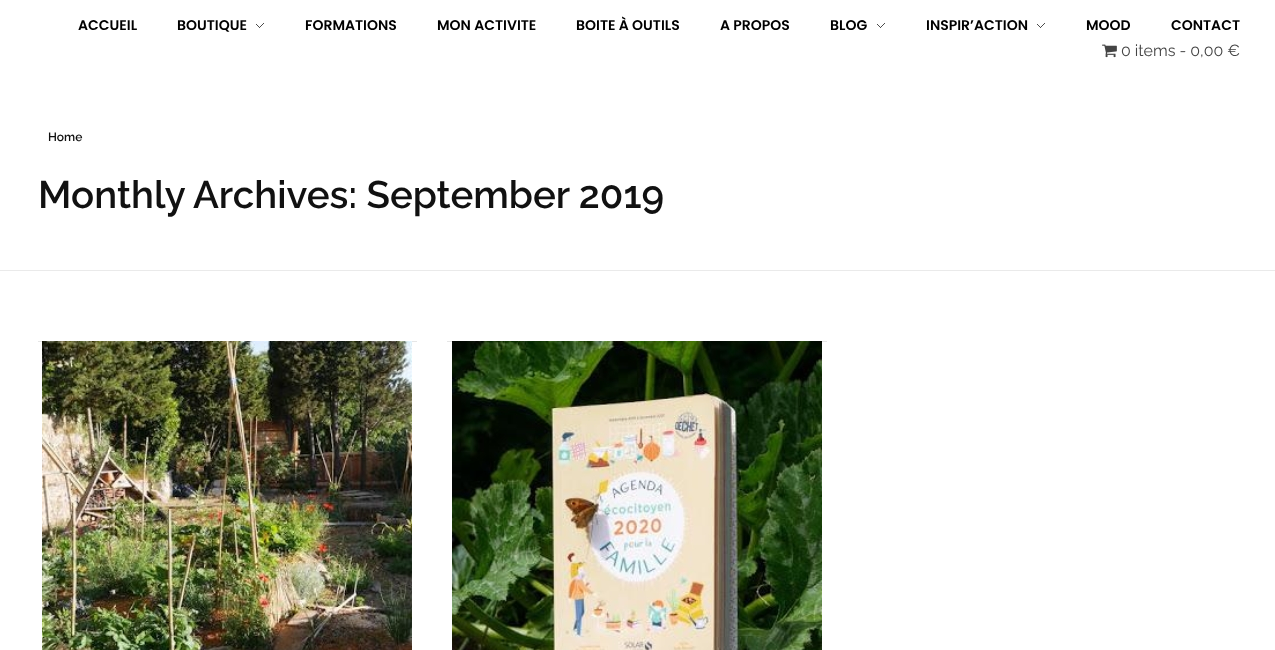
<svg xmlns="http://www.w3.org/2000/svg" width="1275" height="650">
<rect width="100%" height="100%" fill="#fff"/>
<text x="78" y="30" style="font-family:Poppins;font-size:14px;font-weight:600;fill:#000">ACCUEIL</text>
<text x="177" y="30" style="font-family:Poppins;font-size:14px;font-weight:600;fill:#000">BOUTIQUE</text>
<image x="256" y="23" width="8" height="5" href="media/1.png"/>
<text x="305" y="30" style="font-family:Poppins;font-size:14px;font-weight:600;fill:#000">FORMATIONS</text>
<text x="437" y="30" style="font-family:Poppins;font-size:14px;font-weight:600;fill:#000">MON ACTIVITE</text>
<text x="576" y="30" style="font-family:Poppins;font-size:14px;font-weight:600;fill:#000">BOITE À OUTILS</text>
<text x="720" y="30" style="font-family:Poppins;font-size:14px;font-weight:600;fill:#000">A PROPOS</text>
<text x="830" y="30" style="font-family:Poppins;font-size:14px;font-weight:600;fill:#000">BLOG</text>
<image x="877" y="23" width="8" height="5" href="media/1.png"/>
<text x="926" y="30" style="font-family:Poppins;font-size:14px;font-weight:600;fill:#000">INSPIR’ACTION</text>
<image x="1037" y="23" width="8" height="5" href="media/1.png"/>
<text x="1086" y="30" style="font-family:Poppins;font-size:14px;font-weight:600;fill:#000">MOOD</text>
<text x="1171" y="30" style="font-family:Poppins;font-size:14px;font-weight:600;fill:#000">CONTACT</text>
<image x="1102" y="44" width="15" height="14" href="media/2.png"/>
<text x="1121" y="56" style="font-family:Raleway;font-size:16px;fill:#444">0 items - 0,00 €</text>
<rect y="270" width="1275" height="1" fill="#eaeaea"/>
<text x="48" y="141" style="font-family:Raleway;font-size:12px;font-weight:600;fill:#111">Home</text>
<text x="38" y="208" style="font-family:Raleway;font-size:38.4px;font-weight:600;fill:#111">Monthly Archives: September 2019</text>
<rect x="38" y="341" width="379" height="1" fill="#e6e6e6"/>
<image x="42" y="341" width="370" height="309" href="media/3.png"/>
<rect x="447" y="341" width="380" height="1" fill="#e6e6e6"/>
<image x="452" y="341" width="370" height="309" href="media/4.png"/>
</svg>
